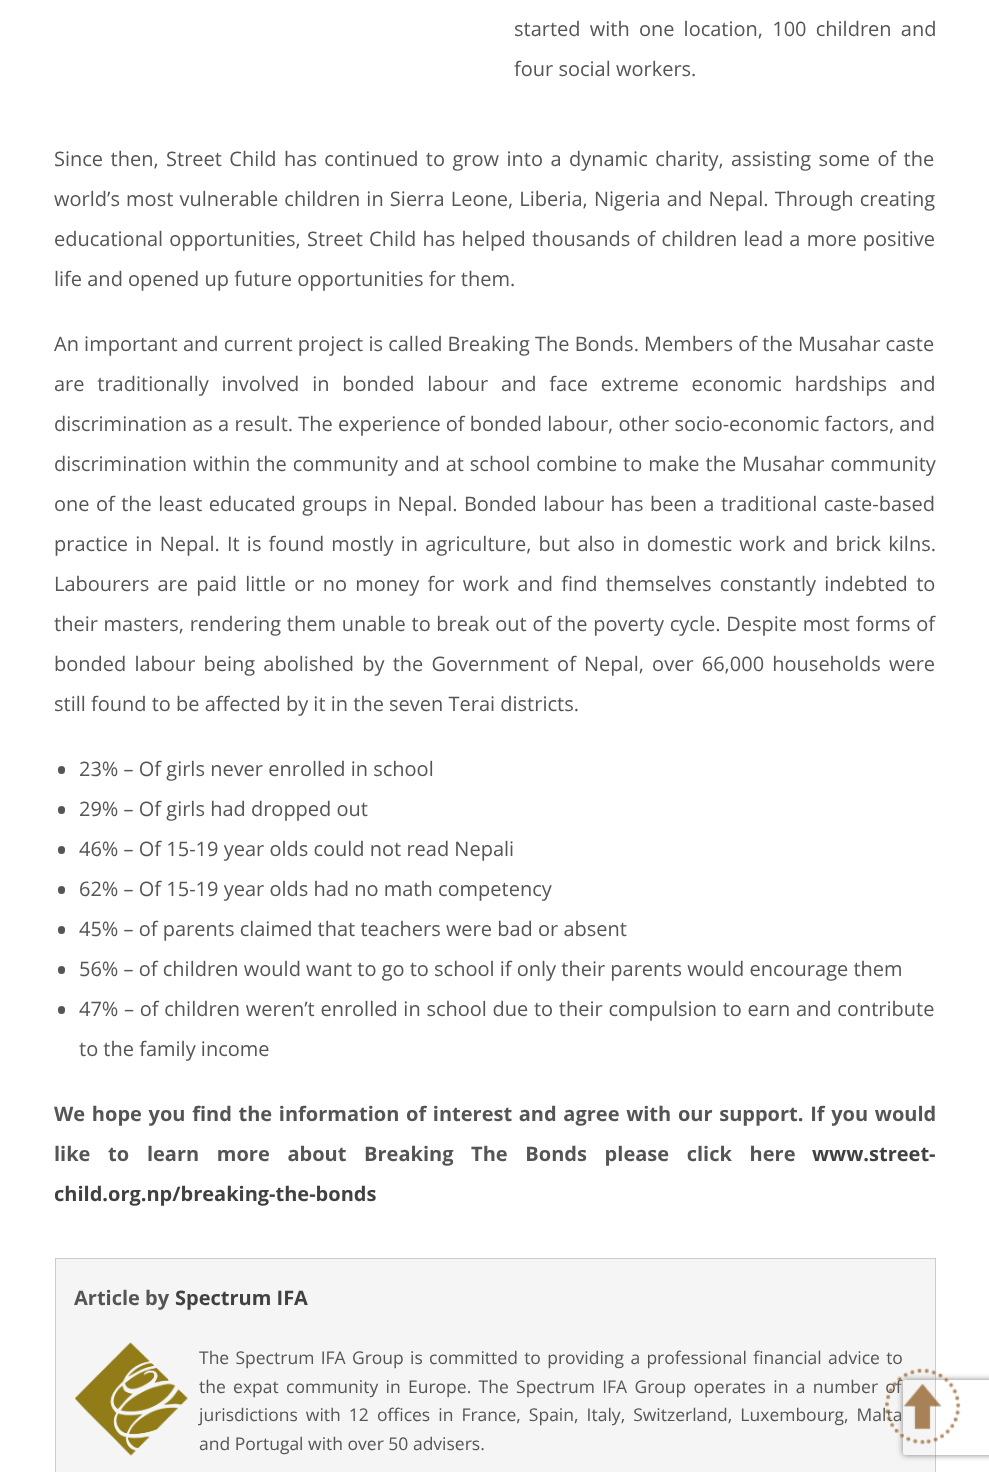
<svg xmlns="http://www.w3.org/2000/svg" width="989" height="1472">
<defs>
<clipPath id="clip1"><path d="M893 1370h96v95h-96zm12.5 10h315c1.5 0 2.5 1 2.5 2.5v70c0 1.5-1 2.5-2.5 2.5h-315c-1.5 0-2.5-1-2.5-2.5v-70c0-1.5 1-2.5 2.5-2.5z" clip-rule="evenodd"/></clipPath>
</defs>
<rect width="100%" height="100%" fill="#fff"/>
<text x="514" y="36" word-spacing="4" style="font-family:Open Sans;font-size:20px;fill:#555">started with one location, 100 children and</text>
<text x="514" y="76" style="font-family:Open Sans;font-size:20px;fill:#555">four social workers.</text>
<text x="54" y="166" word-spacing="2.25" style="font-family:Open Sans;font-size:20px;fill:#555">Since then, Street Child has continued to grow into a dynamic charity, assisting some of the</text>
<text x="54" y="206" word-spacing="1" style="font-family:Open Sans;font-size:20px;fill:#555">world’s most vulnerable children in Sierra Leone, Liberia, Nigeria and Nepal. Through creating</text>
<text x="54" y="246" word-spacing="1" style="font-family:Open Sans;font-size:20px;fill:#555">educational opportunities, Street Child has helped thousands of children lead a more positive</text>
<text x="54" y="286" style="font-family:Open Sans;font-size:20px;fill:#555">life and opened up future opportunities for them.</text>
<text x="54" y="351" style="font-family:Open Sans;font-size:20px;fill:#555">An important and current project is called Breaking The Bonds. Members of the Musahar caste</text>
<text x="54" y="391" word-spacing="7.6" style="font-family:Open Sans;font-size:20px;fill:#555">are traditionally involved in bonded labour and face extreme economic hardships and</text>
<text x="54" y="431" style="font-family:Open Sans;font-size:20px;fill:#555">discrimination as a result. The experience of bonded labour, other socio-economic factors, and</text>
<text x="54" y="471" word-spacing="0.75" style="font-family:Open Sans;font-size:20px;fill:#555">discrimination within the community and at school combine to make the Musahar community</text>
<text x="54" y="511" word-spacing="1.25" style="font-family:Open Sans;font-size:20px;fill:#555">one of the least educated groups in Nepal. Bonded labour has been a traditional caste-based</text>
<text x="54" y="551" word-spacing="2" style="font-family:Open Sans;font-size:20px;fill:#555">practice in Nepal. It is found mostly in agriculture, but also in domestic work and brick kilns.</text>
<text x="54" y="591" word-spacing="3.1" style="font-family:Open Sans;font-size:20px;fill:#555">Labourers are paid little or no money for work and find themselves constantly indebted to</text>
<text x="54" y="631" word-spacing="0.5" style="font-family:Open Sans;font-size:20px;fill:#555">their masters, rendering them unable to break out of the poverty cycle. Despite most forms of</text>
<text x="54" y="671" word-spacing="3" style="font-family:Open Sans;font-size:20px;fill:#555">bonded labour being abolished by the Government of Nepal, over 66,000 households were</text>
<text x="54" y="711" style="font-family:Open Sans;font-size:20px;fill:#555">still found to be affected by it in the seven Terai districts.</text>
<rect x="58" y="766" width="7" height="8" rx="3.5" fill="#555"/>
<text x="79" y="776" style="font-family:Open Sans;font-size:20px;fill:#555">23% – Of girls never enrolled in school</text>
<rect x="58" y="806" width="7" height="8" rx="3.5" fill="#555"/>
<text x="79" y="816" style="font-family:Open Sans;font-size:20px;fill:#555">29% – Of girls had dropped out</text>
<rect x="58" y="846" width="7" height="8" rx="3.5" fill="#555"/>
<text x="79" y="856" style="font-family:Open Sans;font-size:20px;fill:#555">46% – Of 15-19 year olds could not read Nepali</text>
<rect x="58" y="886" width="7" height="8" rx="3.5" fill="#555"/>
<text x="79" y="896" style="font-family:Open Sans;font-size:20px;fill:#555">62% – Of 15-19 year olds had no math competency</text>
<rect x="58" y="926" width="7" height="8" rx="3.5" fill="#555"/>
<text x="79" y="936" style="font-family:Open Sans;font-size:20px;fill:#555">45% – of parents claimed that teachers were bad or absent</text>
<rect x="58" y="966" width="7" height="8" rx="3.5" fill="#555"/>
<text x="79" y="976" style="font-family:Open Sans;font-size:20px;fill:#555">56% – of children would want to go to school if only their parents would encourage them</text>
<rect x="58" y="1006" width="7" height="8" rx="3.5" fill="#555"/>
<text x="79" y="1016" word-spacing="0.5" style="font-family:Open Sans;font-size:20px;fill:#555">47% – of children weren’t enrolled in school due to their compulsion to earn and contribute</text>
<text x="79" y="1056" style="font-family:Open Sans;font-size:20px;fill:#555">to the family income</text>
<text x="54" y="1121" word-spacing="1.5" style="font-family:Open Sans;font-size:20px;font-weight:bold;fill:#555">We hope you find the information of interest and agree with our support. If you would</text>
<text x="54" y="1161" word-spacing="12.5" style="font-family:Open Sans;font-size:20px;font-weight:bold;fill:#555">like to learn more about Breaking The Bonds please click here</text>
<text x="812" y="1161" style="font-family:Open Sans;font-size:20px;font-weight:bold;fill:#424141">www.street-</text>
<text x="54" y="1201" style="font-family:Open Sans;font-size:20px;font-weight:bold;fill:#424141">child.org.np/breaking-the-bonds</text>
<rect x="55.5" y="1258.5" width="880" height="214" fill="#f5f5f5" stroke="#ccc"/>
<text x="74" y="1305" style="font-family:Open Sans;font-size:20px;font-weight:bold;fill:#555">Article by</text>
<text x="175" y="1305" style="font-family:Open Sans;font-size:20px;font-weight:bold;fill:#424141">Spectrum IFA</text>
<image x="75" y="1342" width="113" height="114" href="media/1.png"/>
<text x="199" y="1364" word-spacing="1.75" style="font-family:Open Sans;font-size:17.5px;fill:#555">The Spectrum IFA Group is committed to providing a professional financial advice to</text>
<text x="199" y="1393" word-spacing="2.75" style="font-family:Open Sans;font-size:17.5px;fill:#555">the expat community in Europe. The Spectrum IFA Group operates in a number of</text>
<text x="199" y="1421" word-spacing="3.5" style="font-family:Open Sans;font-size:17.5px;fill:#555">jurisdictions with 12 offices in France, Spain, Italy, Switzerland, Luxembourg, Malta</text>
<text x="199" y="1450" style="font-family:Open Sans;font-size:17.5px;fill:#555">and Portugal with over 50 advisers.</text>
<g clip-path="url(#clip1)">
<rect x="903" y="1380" width="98" height="75" rx="2.5" fill="#808080" filter="blur(3px)"/>
</g>
<image x="884" y="1368" width="77" height="77" href="media/2.png"/>
</svg>
